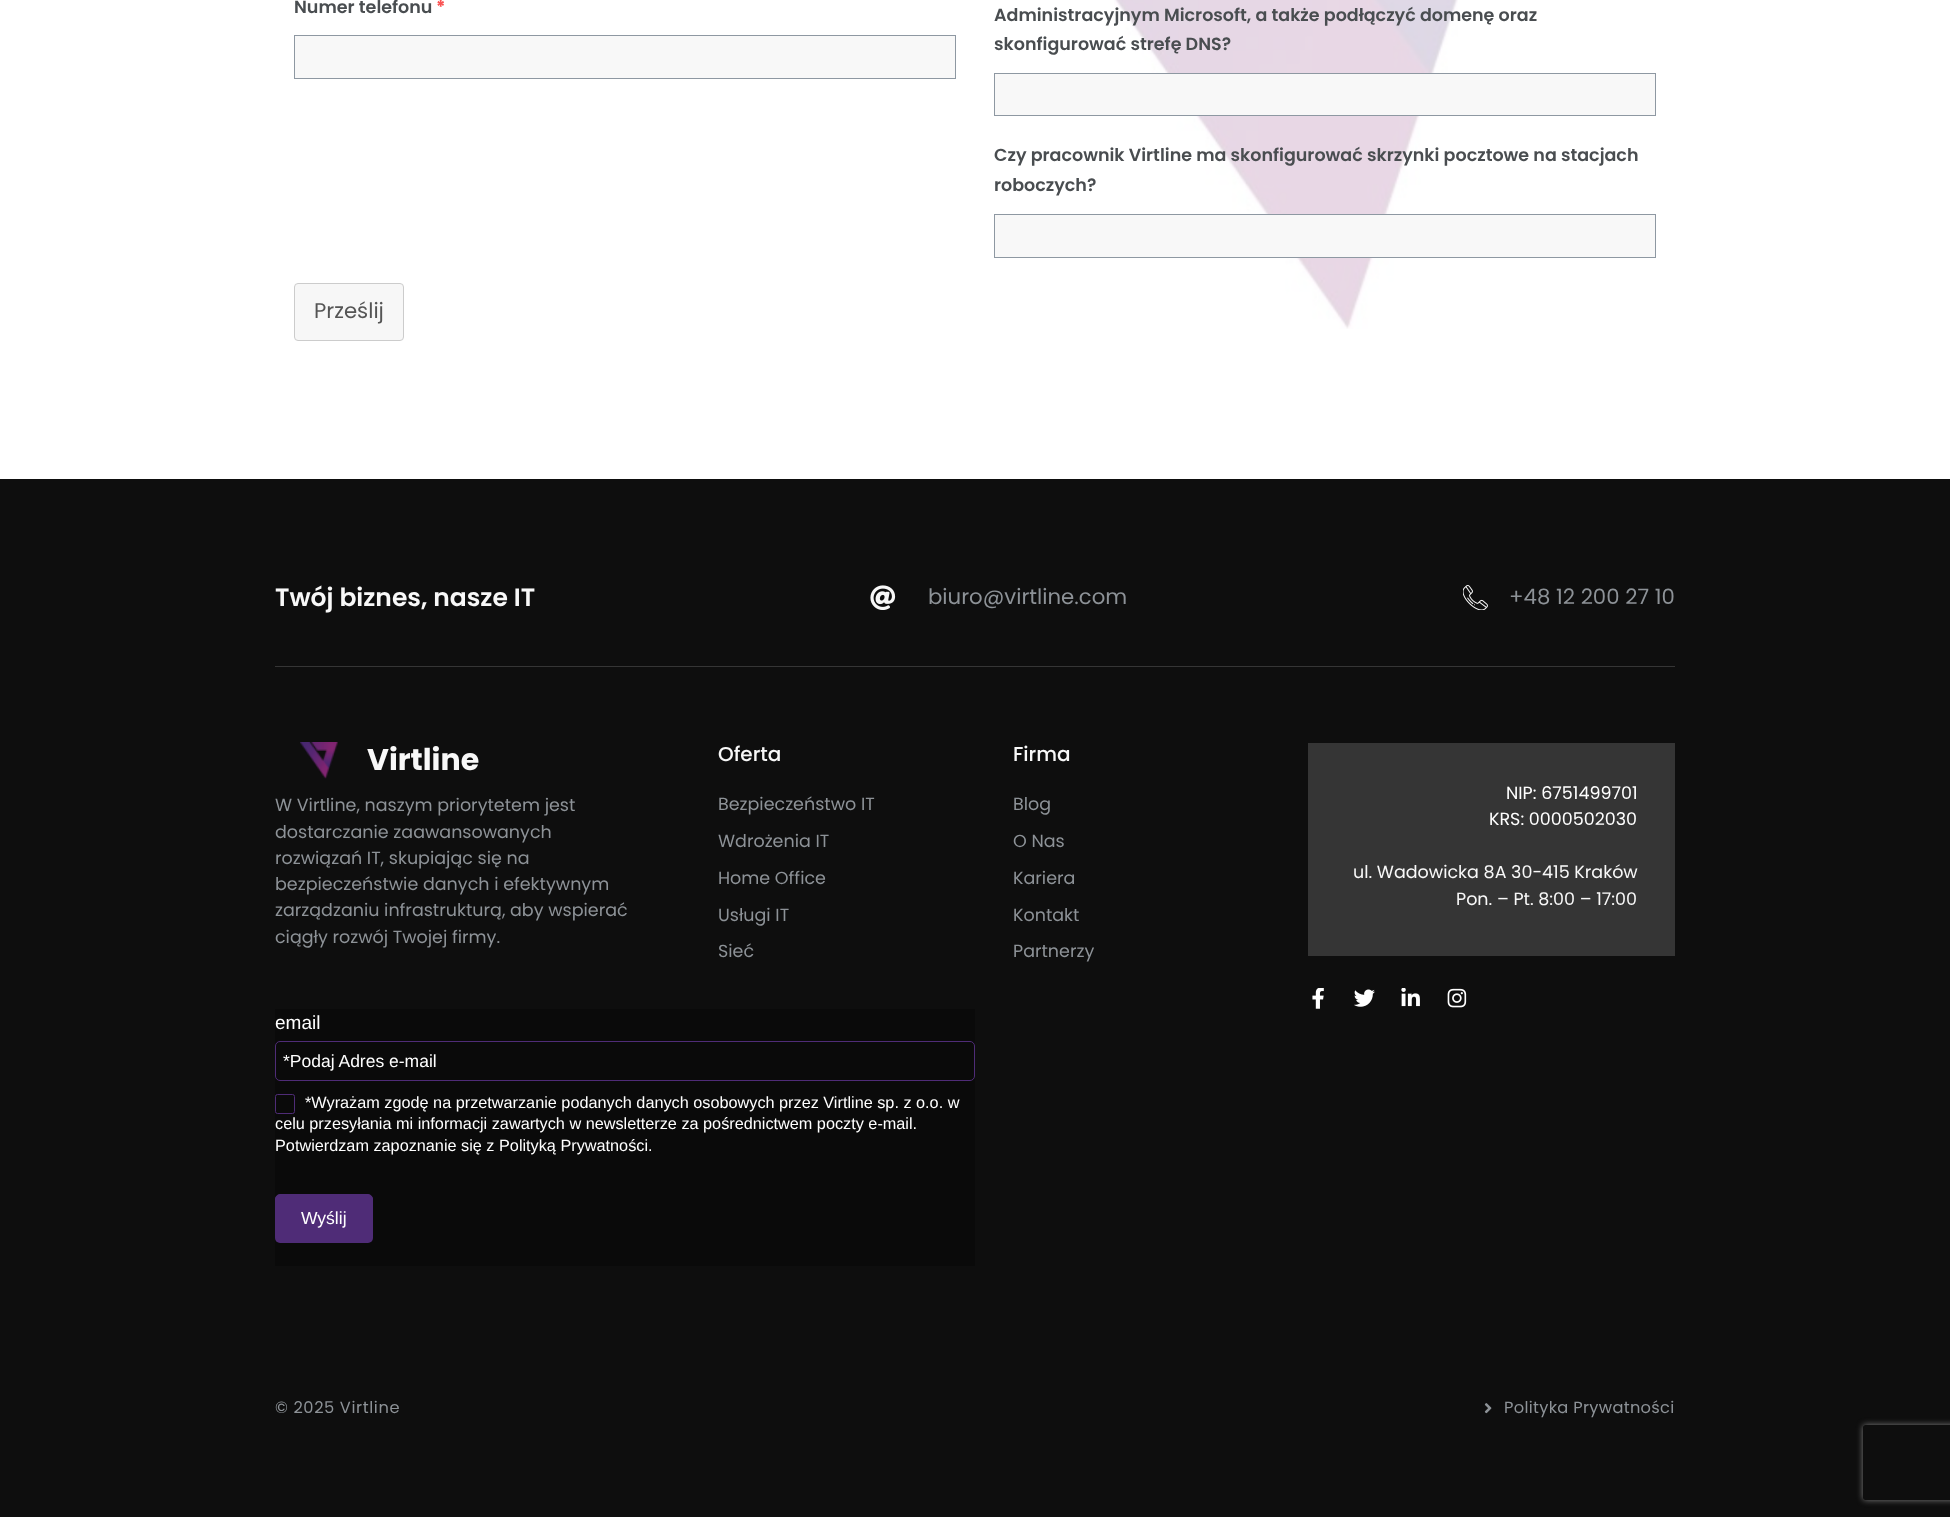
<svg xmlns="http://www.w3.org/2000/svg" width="1950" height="1517">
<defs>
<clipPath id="clip1"><path d="M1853 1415h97v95h-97zm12.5 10h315c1.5 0 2.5 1 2.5 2.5v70c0 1.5-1 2.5-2.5 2.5h-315c-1.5 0-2.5-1-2.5-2.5v-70c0-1.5 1-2.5 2.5-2.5z" clip-rule="evenodd"/></clipPath>
</defs>
<rect width="100%" height="100%" fill="#fff"/>
<image x="1114" y="0" width="344" height="329" href="media/1.png"/>
<text x="294" y="13" style="font-family:Poppins;font-size:17.5px;font-weight:600;fill:#494d50">Numer telefonu</text>
<text x="436" y="13" style="font-family:Poppins;font-size:17.5px;font-weight:bold;fill:#fa5252">*</text>
<rect x="294.5" y="35.5" width="661" height="43" fill="#f8f8f8" stroke="#8e98a2"/>
<text x="994" y="21" style="font-family:Poppins;font-size:17.5px;font-weight:600;fill:#494d50">Administracyjnym Microsoft, a także podłączyć domenę oraz</text>
<text x="994" y="50" style="font-family:Poppins;font-size:17.5px;font-weight:600;fill:#494d50">skonfigurować strefę DNS?</text>
<rect x="994.5" y="73.5" width="661" height="42" fill="#f8f8f8" stroke="#8e98a2"/>
<text x="994" y="161" style="font-family:Poppins;font-size:17.5px;font-weight:600;fill:#494d50">Czy pracownik Virtline ma skonfigurować skrzynki pocztowe na stacjach</text>
<text x="994" y="191" style="font-family:Poppins;font-size:17.5px;font-weight:600;fill:#494d50">roboczych?</text>
<rect x="994.5" y="214.5" width="661" height="43" fill="#f8f8f8" stroke="#8e98a2"/>
<rect x="294.5" y="283.5" width="109" height="57" rx="3.5" fill="#f7f7f7" stroke="#ccc"/>
<text x="314" y="318" style="font-family:Poppins;font-size:21.25px;fill:#555">Prześlij</text>
<rect y="479" width="1950" height="1038" fill="#0e0e0e"/>
<rect x="275" y="666" width="1400" height="1" fill="#353535"/>
<text x="275" y="606" style="font-family:Poppins;font-size:25px;font-weight:600;fill:#f8f8f8">Twój biznes, nasze IT</text>
<image x="870" y="585" width="26" height="25" href="media/2.png"/>
<text x="928" y="604" style="font-family:Poppins;font-size:21.25px;fill:#8d9297">biuro@virtline.com</text>
<image x="1463" y="585" width="25" height="25" href="media/3.png"/>
<text x="1509" y="604" style="font-family:Poppins;font-size:21.25px;fill:#8d9297">+48 12 200 27 10</text>
<image x="300" y="742" width="38" height="37" href="media/4.png"/>
<text x="367" y="770" style="font-family:Poppins;font-size:30px;font-weight:bold;fill:#f8f8f8">Virtline</text>
<text x="275" y="811" style="font-family:Poppins;font-size:17.5px;fill:#8d9297">W Virtline, naszym priorytetem jest</text>
<text x="275" y="838" style="font-family:Poppins;font-size:17.5px;fill:#8d9297">dostarczanie zaawansowanych</text>
<text x="275" y="864" style="font-family:Poppins;font-size:17.5px;fill:#8d9297">rozwiązań IT, skupiając się na</text>
<text x="275" y="890" style="font-family:Poppins;font-size:17.5px;fill:#8d9297">bezpieczeństwie danych i efektywnym</text>
<text x="275" y="916" style="font-family:Poppins;font-size:17.5px;fill:#8d9297">zarządzaniu infrastrukturą, aby wspierać</text>
<text x="275" y="943" style="font-family:Poppins;font-size:17.5px;fill:#8d9297">ciągły rozwój Twojej firmy.</text>
<text x="718" y="761" style="font-family:Poppins;font-size:20px;font-weight:500;fill:#f8f8f8">Oferta</text>
<text x="718" y="810" style="font-family:Poppins;font-size:17.5px;fill:#8d9297">Bezpieczeństwo IT</text>
<text x="718" y="847" style="font-family:Poppins;font-size:17.5px;fill:#8d9297">Wdrożenia IT</text>
<text x="718" y="884" style="font-family:Poppins;font-size:17.5px;fill:#8d9297">Home Office</text>
<text x="718" y="921" style="font-family:Poppins;font-size:17.5px;fill:#8d9297">Usługi IT</text>
<text x="718" y="957" style="font-family:Poppins;font-size:17.5px;fill:#8d9297">Sieć</text>
<text x="1013" y="761" style="font-family:Poppins;font-size:20px;font-weight:500;fill:#f8f8f8">Firma</text>
<text x="1013" y="810" style="font-family:Poppins;font-size:17.5px;fill:#8d9297">Blog</text>
<text x="1013" y="847" style="font-family:Poppins;font-size:17.5px;fill:#8d9297">O Nas</text>
<text x="1013" y="884" style="font-family:Poppins;font-size:17.5px;fill:#8d9297">Kariera</text>
<text x="1013" y="921" style="font-family:Poppins;font-size:17.5px;fill:#8d9297">Kontakt</text>
<text x="1013" y="957" style="font-family:Poppins;font-size:17.5px;fill:#8d9297">Partnerzy</text>
<rect x="1308" y="743" width="367" height="213" fill="#353535"/>
<text x="1506" y="799" style="font-family:Poppins;font-size:17.5px;fill:#fff">NIP: 6751499701</text>
<text x="1489" y="825" style="font-family:Poppins;font-size:17.5px;fill:#fff">KRS: 0000502030</text>
<text x="1353" y="878" style="font-family:Poppins;font-size:17.5px;fill:#f8f8f8">ul. Wadowicka 8A 30-415 Kraków</text>
<text x="1456" y="905" style="font-family:Poppins;font-size:17.5px;fill:#f8f8f8">Pon. – Pt. 8:00 – 17:00</text>
<image x="1312" y="988" width="12" height="21" href="media/5.png"/>
<image x="1354" y="989" width="21" height="18" href="media/6.png"/>
<image x="1401" y="988" width="19" height="19" href="media/7.png"/>
<image x="1447" y="988" width="20" height="20" href="media/8.png"/>
<rect x="275" y="1009" width="700" height="257" fill="#0a0a0a"/>
<text x="275" y="1029" style="font-family:Liberation Sans;font-size:19px;fill:#fff">email</text>
<rect x="275.5" y="1041.5" width="699" height="39" rx="4.5" fill="none" stroke="#4f2c77"/>
<text x="283" y="1067" style="font-family:Liberation Sans;font-size:17.5px;fill:#fff">*Podaj Adres e-mail</text>
<rect x="275.5" y="1094.5" width="19" height="19" rx="2" fill="none" stroke="#4f2c77"/>
<text x="305" y="1108" style="font-family:Liberation Sans;font-size:16.25px;fill:#fff">*Wyrażam zgodę na przetwarzanie podanych danych osobowych przez Virtline sp. z o.o. w</text>
<text x="275" y="1129" style="font-family:Liberation Sans;font-size:16.25px;fill:#fff">celu przesyłania mi informacji zawartych w newsletterze za pośrednictwem poczty e-mail.</text>
<text x="275" y="1151" style="font-family:Liberation Sans;font-size:16.25px;fill:#fff">Potwierdzam zapoznanie się z Polityką Prywatności.</text>
<rect x="275" y="1195" width="98" height="48" rx="5" fill="#4f2c77" filter="blur(0.5px)"/>
<rect x="275.5" y="1194.5" width="97" height="46" rx="4.5" fill="#4f2c77" stroke="#4f2c77"/>
<text x="301" y="1224" style="font-family:Liberation Sans;font-size:17.5px;fill:#fff">Wyślij</text>
<text x="275" y="1413" style="font-family:Poppins;font-size:16.25px;letter-spacing:0.6px;fill:#8d9297">© 2025 Virtline</text>
<image x="1484" y="1403" width="8" height="11" href="media/9.png"/>
<text x="1504" y="1413" style="font-family:Poppins;font-size:16.25px;letter-spacing:0.3px;fill:#8d9297">Polityka Prywatności</text>
<g clip-path="url(#clip1)">
<rect x="1863" y="1425" width="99" height="75" rx="2.5" fill="#808080" filter="blur(3px)"/>
</g>
</svg>
